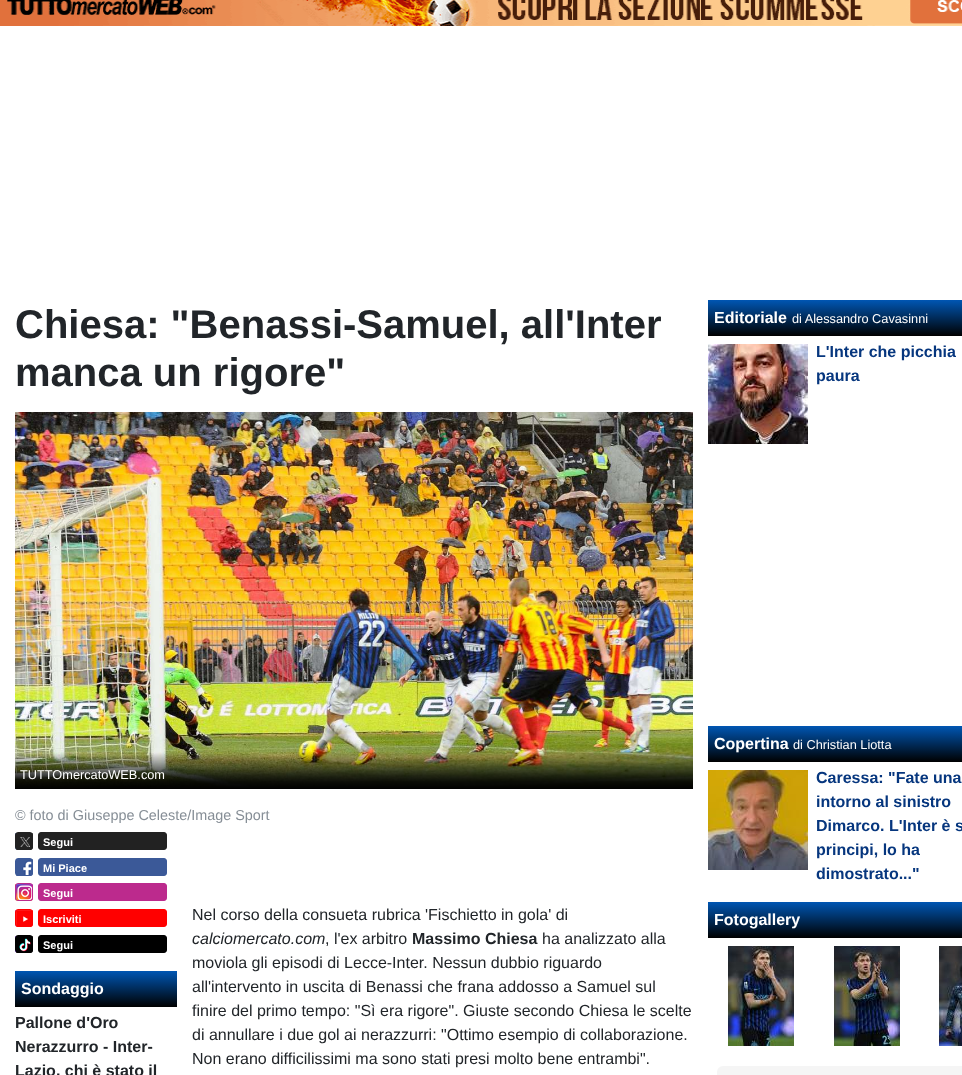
<svg xmlns="http://www.w3.org/2000/svg" width="962" height="1075">
<defs>
<linearGradient id="g1" gradientUnits="userSpaceOnUse" x1="96" y1="971" x2="96" y2="1007"><stop offset="0" stop-color="#0056b3"/><stop offset="1" stop-color="#000"/></linearGradient>
<linearGradient id="g2" gradientUnits="userSpaceOnUse" x1="867" y1="300" x2="867" y2="336"><stop offset="0" stop-color="#0056b3"/><stop offset="1" stop-color="#000"/></linearGradient>
<linearGradient id="g3" gradientUnits="userSpaceOnUse" x1="867" y1="726" x2="867" y2="762"><stop offset="0" stop-color="#0056b3"/><stop offset="1" stop-color="#000"/></linearGradient>
<linearGradient id="g4" gradientUnits="userSpaceOnUse" x1="867" y1="902" x2="867" y2="938"><stop offset="0" stop-color="#0056b3"/><stop offset="1" stop-color="#000"/></linearGradient>
</defs>
<rect width="100%" height="100%" fill="#fff"/>
<image x="0" y="0" width="962" height="26" href="media/1.png"/>
<text x="15" y="338" style="font-family:Liberation Sans;font-size:40px;font-weight:bold;fill:#212529">Chiesa: "Benassi-Samuel, all'Inter</text>
<text x="15" y="386" style="font-family:Liberation Sans;font-size:40px;font-weight:bold;fill:#212529">manca un rigore"</text>
<image x="15" y="412" width="678" height="377" href="media/2.png"/>
<text x="20" y="779" style="font-family:Liberation Sans;font-size:12.75px;fill:#fff">TUTTOmercatoWEB.com</text>
<text x="15" y="820" style="font-family:Liberation Sans;font-size:14.4px;fill:#868e96">© foto di Giuseppe Celeste/Image Sport</text>
<image x="15" y="833" width="18" height="17" href="media/3.png"/>
<rect x="15.5" y="832.5" width="17" height="17" rx="2.5" fill="none" stroke="#222"/>
<rect x="38.5" y="832.5" width="128" height="17" rx="2.5" fill="#222" stroke="#222"/>
<text x="43" y="846" style="font-family:Liberation Sans;font-size:11px;font-weight:bold;fill:#fff">Segui</text>
<image x="16" y="859" width="17" height="17" href="media/4.png"/>
<rect x="15.5" y="858.5" width="17" height="17" rx="2.5" fill="none" stroke="#3b5998"/>
<rect x="38.5" y="858.5" width="128" height="17" rx="2.5" fill="#3b5998" stroke="#3b5998"/>
<text x="43" y="872" style="font-family:Liberation Sans;font-size:11px;font-weight:bold;fill:#fff">Mi Piace</text>
<image x="15" y="884" width="18" height="17" href="media/5.png"/>
<rect x="15.5" y="883.5" width="17" height="17" rx="2.5" fill="none" stroke="#bc2a8d"/>
<rect x="38.5" y="883.5" width="128" height="17" rx="2.5" fill="#bc2a8d" stroke="#bc2a8d"/>
<text x="43" y="897" style="font-family:Liberation Sans;font-size:11px;font-weight:bold;fill:#fff">Segui</text>
<image x="15" y="910" width="18" height="17" href="media/6.png"/>
<rect x="15.5" y="909.5" width="17" height="17" rx="2.5" fill="none" stroke="#f00"/>
<rect x="38.5" y="909.5" width="128" height="17" rx="2.5" fill="#f00" stroke="#f00"/>
<text x="43" y="923" style="font-family:Liberation Sans;font-size:11px;font-weight:bold;fill:#fff">Iscriviti</text>
<image x="15" y="936" width="18" height="17" href="media/7.png"/>
<rect x="15.5" y="935.5" width="17" height="17" rx="2.5" fill="none" stroke="#000"/>
<rect x="38.5" y="935.5" width="128" height="17" rx="2.5" fill="#000" stroke="#000"/>
<text x="43" y="949" style="font-family:Liberation Sans;font-size:11px;font-weight:bold;fill:#fff">Segui</text>
<rect x="15" y="971" width="162" height="36" fill="url(#g1)"/>
<text x="21" y="994" style="font-family:Liberation Sans;font-size:16px;font-weight:bold;fill:#fff">Sondaggio</text>
<text x="15" y="1028" style="font-family:Liberation Sans;font-size:16px;font-weight:bold;fill:#212529">Pallone d'Oro</text>
<text x="15" y="1052" style="font-family:Liberation Sans;font-size:16px;font-weight:bold;fill:#212529">Nerazzurro - Inter-</text>
<text x="15" y="1076" style="font-family:Liberation Sans;font-size:16px;font-weight:bold;fill:#212529">Lazio, chi è stato il</text>
<text x="192" y="920" style="font-family:Liberation Sans;font-size:16px;fill:#212529">Nel corso della consueta rubrica 'Fischietto in gola' di</text>
<text x="192" y="944" style="font-family:Liberation Sans;font-size:16px;font-style:italic;fill:#212529">calciomercato.com</text>
<text x="325" y="944" style="font-family:Liberation Sans;font-size:16px;fill:#212529">, l'ex arbitro</text>
<text x="412" y="944" style="font-family:Liberation Sans;font-size:16px;font-weight:bold;fill:#212529">Massimo Chiesa</text>
<text x="542" y="944" style="font-family:Liberation Sans;font-size:16px;fill:#212529">ha analizzato alla</text>
<text x="192" y="968" style="font-family:Liberation Sans;font-size:16px;fill:#212529">moviola gli episodi di Lecce-Inter. Nessun dubbio riguardo</text>
<text x="192" y="992" style="font-family:Liberation Sans;font-size:16px;fill:#212529">all'intervento in uscita di Benassi che frana addosso a Samuel sul</text>
<text x="192" y="1016" style="font-family:Liberation Sans;font-size:16px;fill:#212529">finire del primo tempo: "Sì era rigore". Giuste secondo Chiesa le scelte</text>
<text x="192" y="1040" style="font-family:Liberation Sans;font-size:16px;fill:#212529">di annullare i due gol ai nerazzurri: "Ottimo esempio di collaborazione.</text>
<text x="192" y="1064" style="font-family:Liberation Sans;font-size:16px;fill:#212529">Non erano difficilissimi ma sono stati presi molto bene entrambi".</text>
<rect x="708" y="300" width="254" height="36" fill="url(#g2)"/>
<text x="714" y="323" style="font-family:Liberation Sans;font-size:16px;font-weight:bold;fill:#fff">Editoriale</text>
<text x="792" y="323" style="font-family:Liberation Sans;font-size:12.75px;fill:#fff">di Alessandro Cavasinni</text>
<image x="708" y="344" width="100" height="100" href="media/8.png"/>
<text x="816" y="357" style="font-family:Liberation Sans;font-size:16px;font-weight:bold;fill:#06367e">L'Inter che picchia</text>
<text x="816" y="381" style="font-family:Liberation Sans;font-size:16px;font-weight:bold;fill:#06367e">paura</text>
<rect x="708" y="726" width="254" height="36" fill="url(#g3)"/>
<text x="714" y="749" style="font-family:Liberation Sans;font-size:16px;font-weight:bold;fill:#fff">Copertina</text>
<text x="793" y="749" style="font-family:Liberation Sans;font-size:12.75px;fill:#fff">di Christian Liotta</text>
<image x="708" y="770" width="100" height="100" href="media/9.png"/>
<text x="816" y="783" style="font-family:Liberation Sans;font-size:16px;font-weight:bold;fill:#06367e">Caressa: "Fate una</text>
<text x="816" y="807" style="font-family:Liberation Sans;font-size:16px;font-weight:bold;fill:#06367e">intorno al sinistro</text>
<text x="816" y="831" style="font-family:Liberation Sans;font-size:16px;font-weight:bold;fill:#06367e">Dimarco. L'Inter è s</text>
<text x="816" y="855" style="font-family:Liberation Sans;font-size:16px;font-weight:bold;fill:#06367e">principi, lo ha</text>
<text x="816" y="879" style="font-family:Liberation Sans;font-size:16px;font-weight:bold;fill:#06367e">dimostrato..."</text>
<rect x="708" y="902" width="254" height="36" fill="url(#g4)"/>
<text x="714" y="925" style="font-family:Liberation Sans;font-size:16px;font-weight:bold;fill:#fff">Fotogallery</text>
<image x="728" y="946" width="66" height="100" href="media/10.png"/>
<image x="834" y="946" width="66" height="100" href="media/11.png"/>
<image x="939" y="946" width="23" height="100" href="media/12.png"/>
<rect x="717" y="1066" width="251" height="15" rx="6" fill="#f5f5f5"/>
</svg>
